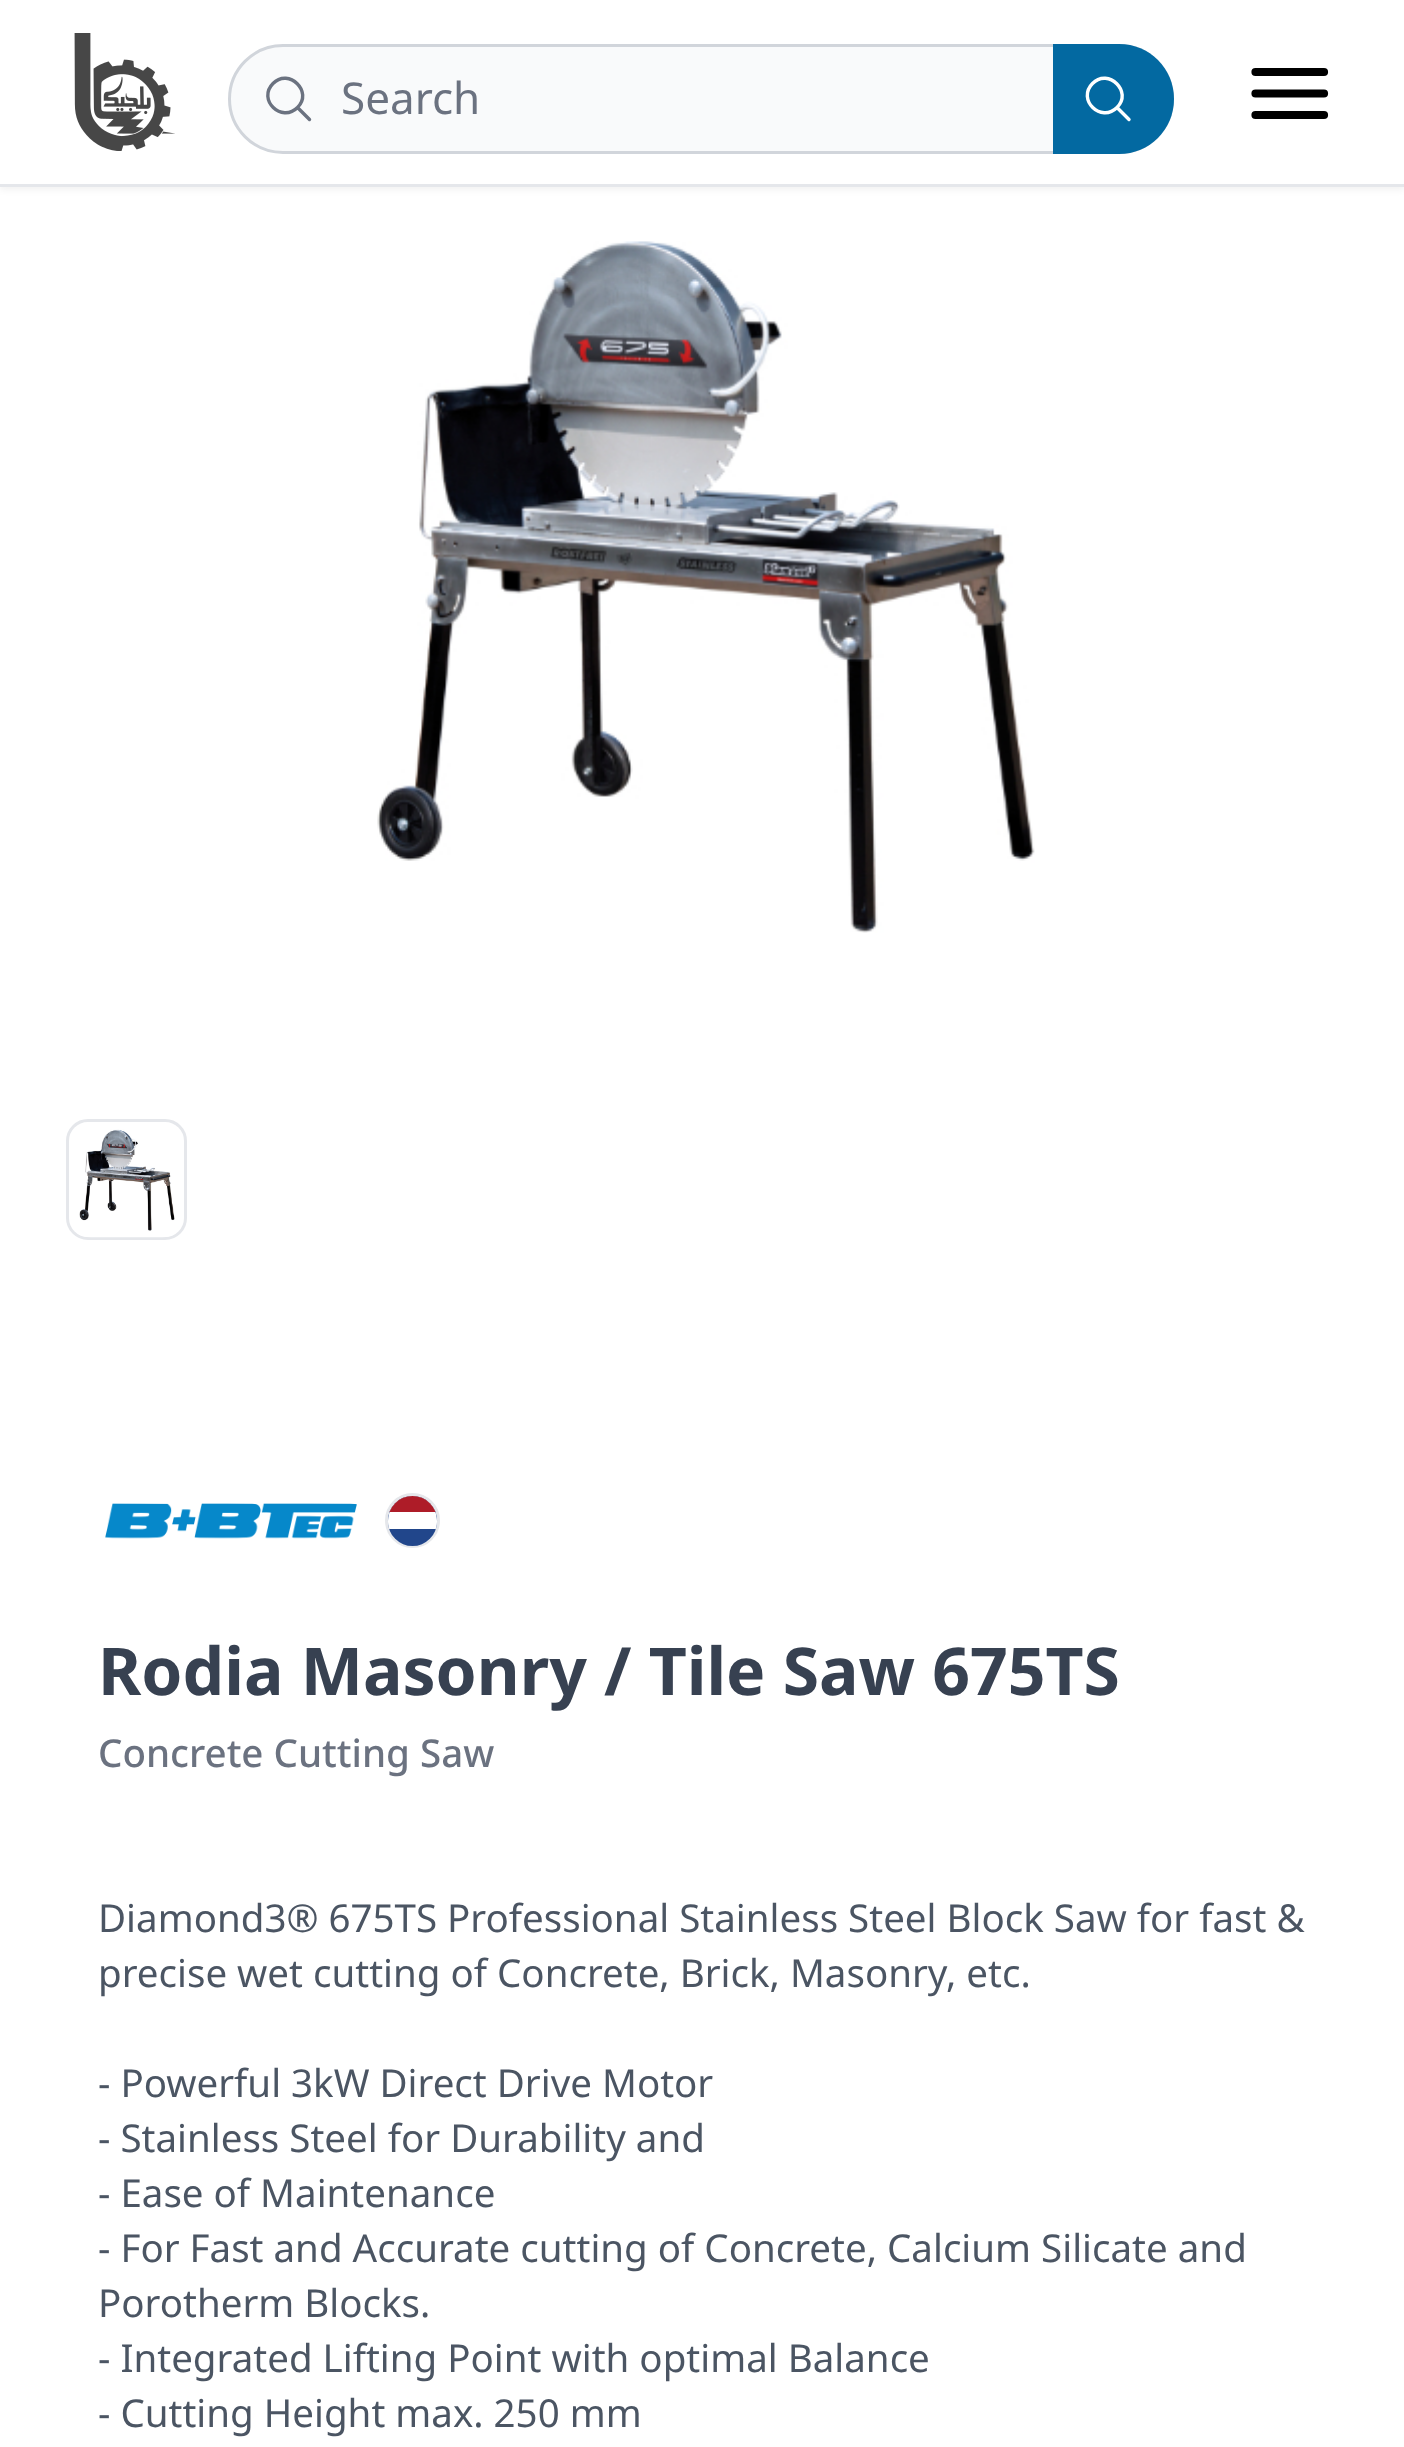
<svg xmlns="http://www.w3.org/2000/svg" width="1404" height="2447">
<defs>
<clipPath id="clip1"><rect x="388" y="1496" width="49" height="50" rx="24.5"/></clipPath>
</defs>
<rect width="100%" height="100%" fill="#fff"/>
<rect y="3" width="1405" height="187" fill="#0000000d" filter="blur(3px)"/>
<rect width="1404" height="184" fill="#fff"/>
<rect y="184" width="1404" height="3" fill="#e5e7eb"/>
<image x="74" y="33" width="101" height="118" href="media/1.png"/>
<rect x="229.5" y="45.5" width="943" height="107" rx="53.5" fill="#f9fafb" stroke="#d1d5db" stroke-width="3"/>
<path d="M309.5 119.5l-12-12m0 0c16-15.5-8.5-40-24.5-24c-16 16 8.5 40 24.5 24z" fill="none" stroke="#6b7280" stroke-width="3.4" stroke-linecap="round" stroke-linejoin="round"/>
<text x="341" y="114" style="font-family:Noto Sans;font-size:44px;fill:#6b7280">Search</text>
<path d="M1053 44h66c30.5 0 55 24.5 55 55c0 30.5-24.5 55-55 55h-66z" fill="#0369a1"/>
<path d="M1129 119.5l-12-12m0 0c16-15.5-8.5-40-24.5-24c-16 16 8.5 40 24.5 24z" fill="none" stroke="#fff" stroke-width="3.4" stroke-linecap="round" stroke-linejoin="round"/>
<path d="M1255.5 72h68.5m-68.5 21.5h68.5m-68.5 21.5h68.5" fill="none" stroke="#000" stroke-width="8.2" stroke-linecap="round" stroke-linejoin="round"/>
<image x="377" y="241" width="658" height="692" href="media/2.png"/>
<rect x="67.5" y="1120.5" width="118" height="118" rx="20.5" fill="none" stroke="#e5e7eb" stroke-width="3"/>
<image x="79" y="1129" width="96" height="109" href="media/3.png"/>
<image x="105" y="1503" width="252" height="36" href="media/4.png"/>
<circle cx="412.5" cy="1520.5" r="26" fill="none" stroke="#e5e7eb" stroke-width="3"/>
<rect x="388" y="1496" width="49" height="50" rx="24.5" fill="#21468b"/>
<g clip-path="url(#clip1)">
<path d="M412.5 1496c13.5 0 24.5 11 24.5 24.5v8.5h-49v-8.5c0-13.5 11-24.5 24.5-24.5z" fill="#fff"/>
<rect x="389" y="1496" width="47" height="16" fill="#ae1c28"/>
</g>
<text x="98" y="1695" style="font-family:Noto Sans;font-size:66px;font-weight:bold;fill:#374151">Rodia Masonry / Tile Saw 675TS</text>
<text x="98" y="1767" style="font-family:Noto Sans;font-size:38.5px;font-weight:500;fill:#6b7280">Concrete Cutting Saw</text>
<text x="98" y="1932" style="font-family:Noto Sans;font-size:38.5px;fill:#4b5563">Diamond3® 675TS Professional Stainless Steel Block Saw for fast &amp;</text>
<text x="98" y="1987" style="font-family:Noto Sans;font-size:38.5px;fill:#4b5563">precise wet cutting of Concrete, Brick, Masonry, etc.</text>
<text x="98" y="2097" style="font-family:Noto Sans;font-size:38.5px;fill:#4b5563">- Powerful 3kW Direct Drive Motor</text>
<text x="98" y="2152" style="font-family:Noto Sans;font-size:38.5px;fill:#4b5563">- Stainless Steel for Durability and</text>
<text x="98" y="2207" style="font-family:Noto Sans;font-size:38.5px;fill:#4b5563">- Ease of Maintenance</text>
<text x="98" y="2262" style="font-family:Noto Sans;font-size:38.5px;fill:#4b5563">- For Fast and Accurate cutting of Concrete, Calcium Silicate and</text>
<text x="98" y="2317" style="font-family:Noto Sans;font-size:38.5px;fill:#4b5563">Porotherm Blocks.</text>
<text x="98" y="2372" style="font-family:Noto Sans;font-size:38.5px;fill:#4b5563">- Integrated Lifting Point with optimal Balance</text>
<text x="98" y="2427" style="font-family:Noto Sans;font-size:38.5px;fill:#4b5563">- Cutting Height max. 250 mm</text>
</svg>
